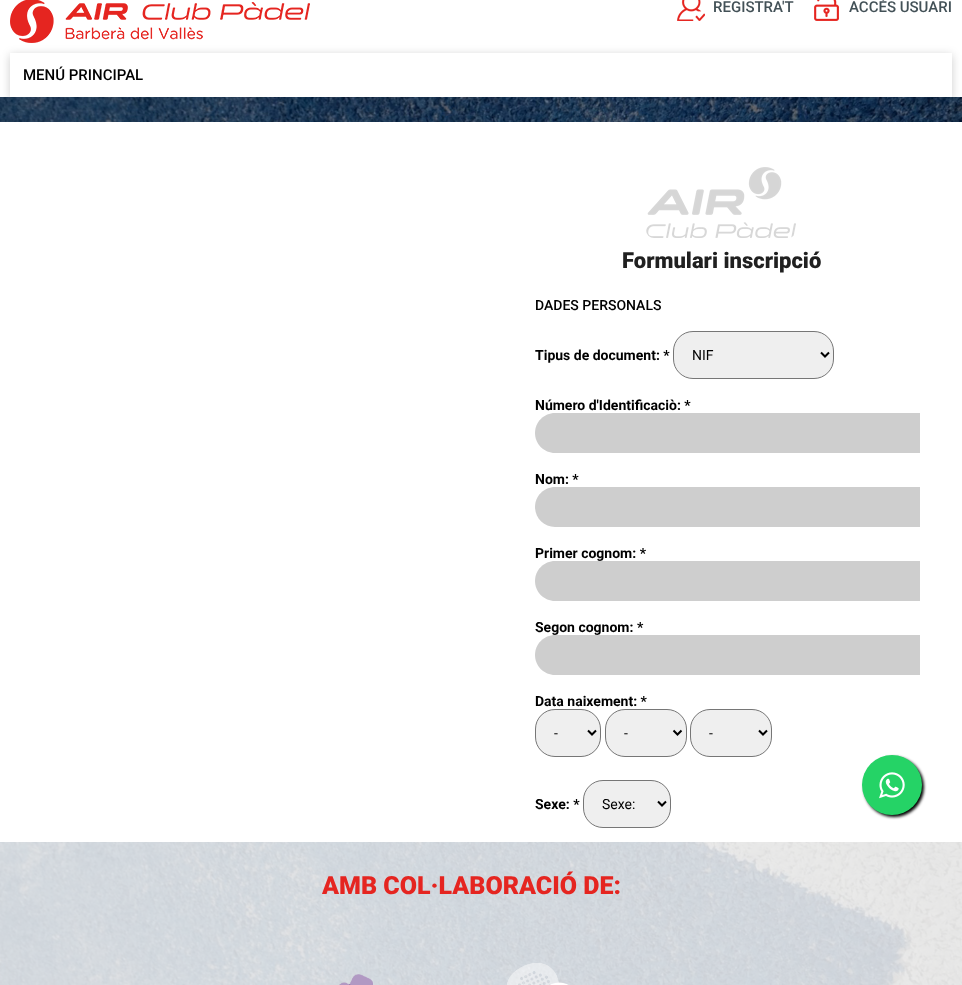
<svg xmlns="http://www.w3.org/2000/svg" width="962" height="985">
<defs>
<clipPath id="clip1"><rect x="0" y="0" width="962" height="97"/></clipPath>
<clipPath id="clip2"><path d="M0 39h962v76h-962zm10 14h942v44h-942z" clip-rule="evenodd"/></clipPath>
</defs>
<rect width="100%" height="100%" fill="#fff"/>
<image x="0" y="97" width="962" height="888" href="media/1.png"/>
<image x="10" y="0" width="300" height="43" href="media/2.png"/>
<image x="677" y="0" width="28" height="21" href="media/3.png"/>
<text x="713" y="12" style="font-family:Roboto;font-size:15px;font-weight:500;fill:#435157">REGISTRA'T</text>
<image x="814" y="0" width="25" height="21" href="media/4.png"/>
<text x="849" y="12" style="font-family:Roboto;font-size:15px;font-weight:500;fill:#435157">ACCÉS USUARI</text>
<g clip-path="url(#clip1)">
<g clip-path="url(#clip2)">
<rect x="10" y="55" width="942" height="44" fill="#00000033" filter="blur(5px)"/>
</g>
</g>
<text x="23" y="80" style="font-family:Roboto;font-size:15px;font-weight:500;fill:#000">MENÚ PRINCIPAL</text>
<rect y="122" width="962" height="720" fill="#fff"/>
<image x="60" y="121" width="14" height="1" href="media/5.png"/>
<image x="646" y="167" width="150" height="71" href="media/6.png"/>
<text x="622" y="268" style="font-family:Roboto;font-size:22px;font-weight:900;fill:#202020">Formulari inscripció</text>
<text x="535" y="310" style="font-family:Roboto;font-size:14px;font-weight:500;fill:#000">DADES PERSONALS</text>
<text x="535" y="360" style="font-family:Roboto;font-size:14px;font-weight:bold;fill:#000">Tipus de document: *</text>
<rect x="673.5" y="331.5" width="160" height="47" rx="19.5" fill="#efefef" stroke="#767676"/>
<path d="M821 352.5l4 4l4-4" fill="none" stroke="#000" stroke-width="2"/>
<text x="692" y="360" style="font-family:Roboto;font-size:14px;fill:#000">NIF</text>
<text x="535" y="410" style="font-family:Roboto;font-size:14px;font-weight:bold;fill:#000">Número d'Identificaciò: *</text>
<path d="M555 413h365v40h-365c-11 0-20-9-20-20c0-11 9-20 20-20z" fill="#cecece"/>
<text x="535" y="484" style="font-family:Roboto;font-size:14px;font-weight:bold;fill:#000">Nom: *</text>
<path d="M555 487h365v40h-365c-11 0-20-9-20-20c0-11 9-20 20-20z" fill="#cecece"/>
<text x="535" y="558" style="font-family:Roboto;font-size:14px;font-weight:bold;fill:#000">Primer cognom: *</text>
<path d="M555 561h365v40h-365c-11 0-20-9-20-20c0-11 9-20 20-20z" fill="#cecece"/>
<text x="535" y="632" style="font-family:Roboto;font-size:14px;font-weight:bold;fill:#000">Segon cognom: *</text>
<path d="M555 635h365v40h-365c-11 0-20-9-20-20c0-11 9-20 20-20z" fill="#cecece"/>
<text x="535" y="706" style="font-family:Roboto;font-size:14px;font-weight:bold;fill:#000">Data naixement: *</text>
<rect x="535.5" y="709.5" width="65" height="47" rx="19.5" fill="#efefef" stroke="#767676"/>
<path d="M588 730.5l4 4l4-4" fill="none" stroke="#000" stroke-width="2"/>
<text x="554" y="738" style="font-family:Roboto;font-size:14px;fill:#000">-</text>
<rect x="605.5" y="709.5" width="81" height="47" rx="19.5" fill="#efefef" stroke="#767676"/>
<path d="M673.5 730.5l4 4l4-4" fill="none" stroke="#000" stroke-width="2"/>
<text x="624" y="738" style="font-family:Roboto;font-size:14px;fill:#000">-</text>
<rect x="690.5" y="709.5" width="81" height="47" rx="19.5" fill="#efefef" stroke="#767676"/>
<path d="M759 730.5l4 4l4-4" fill="none" stroke="#000" stroke-width="2"/>
<text x="709" y="738" style="font-family:Roboto;font-size:14px;fill:#000">-</text>
<text x="535" y="809" style="font-family:Roboto;font-size:14px;font-weight:bold;fill:#000">Sexe: *</text>
<rect x="583.5" y="780.5" width="87" height="47" rx="19.5" fill="#efefef" stroke="#767676"/>
<path d="M658 801.5l4 4l4-4" fill="none" stroke="#000" stroke-width="2"/>
<text x="602" y="809" style="font-family:Roboto;font-size:14px;fill:#000">Sexe:</text>
<rect x="864" y="757" width="60" height="60" rx="30" fill="#000" filter="blur(1.5px)"/>
<circle cx="892" cy="785" r="30" fill="#25d366"/>
<image x="879" y="772" width="26" height="27" href="media/7.png"/>
<rect y="842" width="962" height="143" fill="#ffffffcc"/>
<text x="322" y="894" style="font-family:Roboto;font-size:25px;font-weight:900;fill:#e52520">AMB COL·LABORACIÓ DE:</text>
<image x="339" y="974" width="34" height="11" href="media/8.png"/>
<image x="507" y="963" width="62" height="22" href="media/9.png"/>
</svg>
